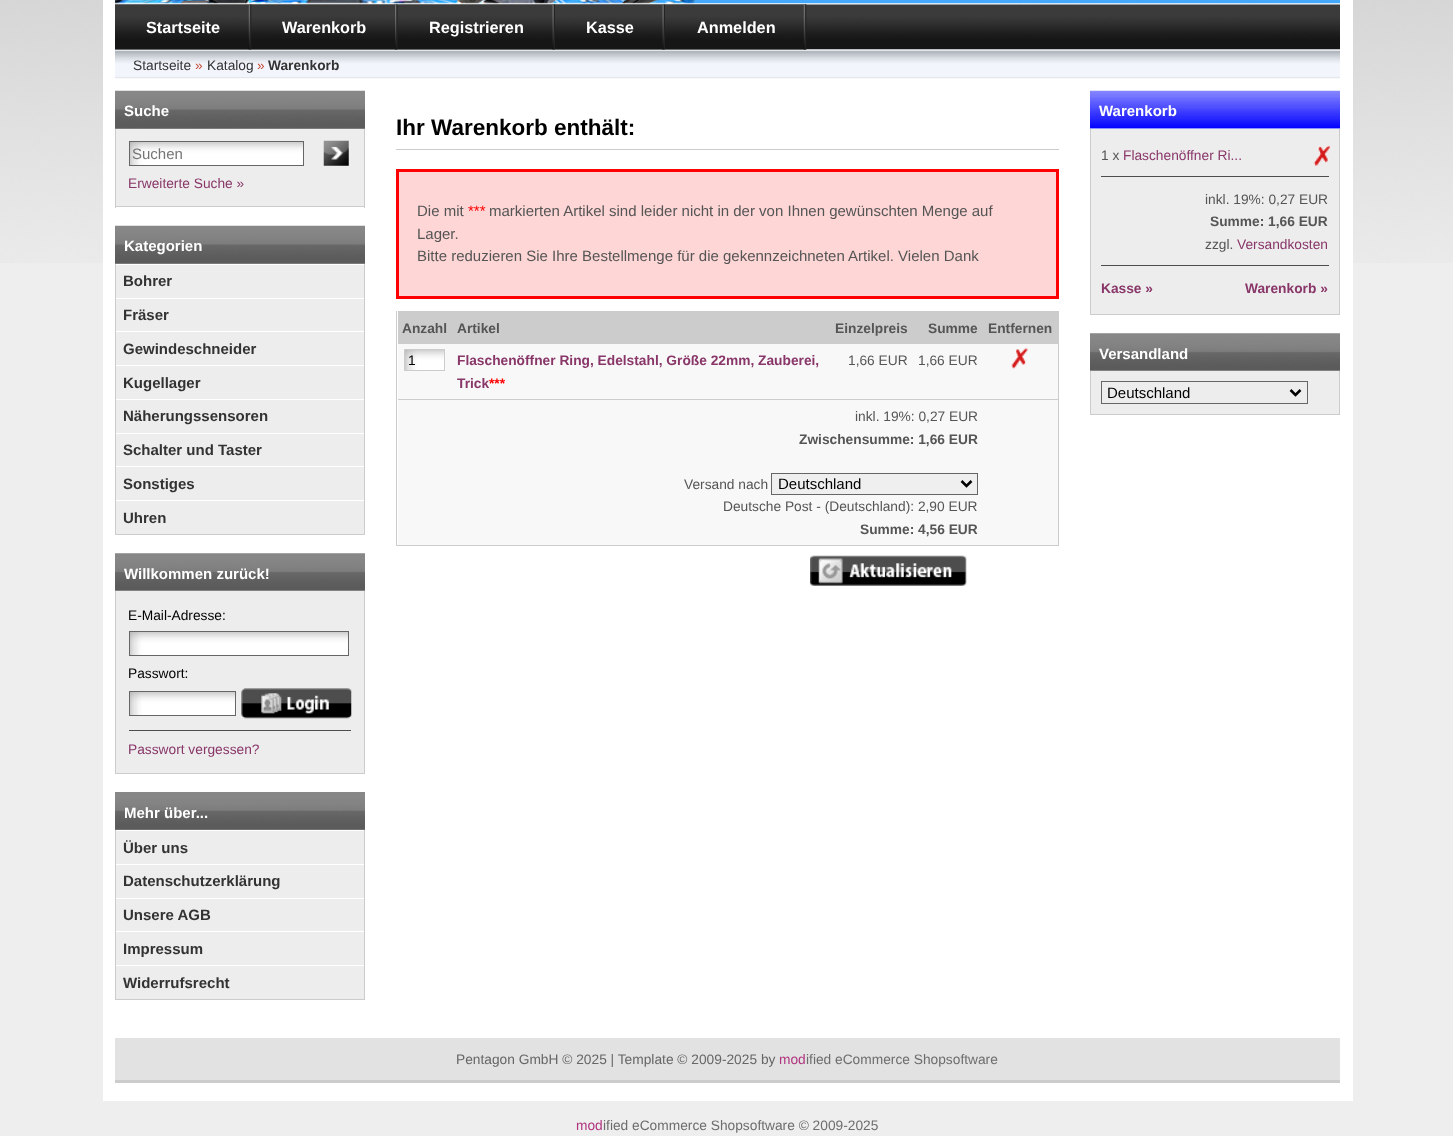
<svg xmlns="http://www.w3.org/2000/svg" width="1453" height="1136">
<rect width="100%" height="100%" fill="#eee"/>
<image x="0" y="0" width="1453" height="263" href="media/1.png"/>
<rect x="115" y="3" width="1225" height="1086" fill="#fff"/>
<rect x="1340" width="13" height="1089" fill="#fff"/>
<rect x="115" y="1089" width="1238" height="12" fill="#fff"/>
<rect x="103" width="12" height="1101" fill="#fff"/>
<image x="115" y="0" width="1225" height="4" href="media/2.png"/>
<image x="115" y="4" width="1225" height="46" href="media/3.png"/>
<image x="115" y="49" width="1225" height="30" href="media/10.png"/>
<image x="115" y="4" width="692" height="46" href="media/4.png"/>
<image x="248" y="4" width="4" height="46" href="media/5.png"/>
<text x="146" y="33" style="font-family:Liberation Sans;font-size:16.25px;font-weight:bold;fill:#fff">Startseite</text>
<image x="395" y="4" width="3" height="46" href="media/6.png"/>
<text x="282" y="33" style="font-family:Liberation Sans;font-size:16.25px;font-weight:bold;fill:#fff">Warenkorb</text>
<image x="552" y="4" width="3" height="46" href="media/7.png"/>
<text x="429" y="33" style="font-family:Liberation Sans;font-size:16.25px;font-weight:bold;fill:#fff">Registrieren</text>
<image x="662" y="4" width="3" height="46" href="media/8.png"/>
<text x="586" y="33" style="font-family:Liberation Sans;font-size:16.25px;font-weight:bold;fill:#fff">Kasse</text>
<image x="803" y="4" width="4" height="46" href="media/9.png"/>
<text x="697" y="33" style="font-family:Liberation Sans;font-size:16.25px;font-weight:bold;fill:#fff">Anmelden</text>
<text x="133" y="70" style="font-family:Liberation Sans;font-size:13.75px;fill:#333">Startseite</text>
<text x="195" y="70" style="font-family:Liberation Sans;font-size:13.75px;fill:#c64934">»</text>
<text x="207" y="70" style="font-family:Liberation Sans;font-size:13.75px;fill:#333">Katalog</text>
<text x="257" y="70" style="font-family:Liberation Sans;font-size:13.75px;fill:#c64934">»</text>
<text x="268" y="70" style="font-family:Liberation Sans;font-size:13.75px;font-weight:bold;fill:#333">Warenkorb</text>
<rect x="115" y="128" width="250" height="1" fill="#868686"/>
<image x="115" y="90" width="250" height="39" href="media/11.png"/>
<text x="124" y="116" style="font-family:Liberation Sans;font-size:15px;font-weight:bold;fill:#fff">Suche</text>
<rect x="116" y="129" width="248" height="77" fill="#ededed"/>
<rect x="364" y="129" width="1" height="79" fill="#ccc"/>
<rect x="115" y="206" width="250" height="1" fill="#ccc"/>
<rect x="115" y="129" width="1" height="79" fill="#ccc"/>
<image x="130" y="142" width="173" height="23" href="media/12.png"/>
<rect x="129.5" y="141.5" width="174" height="24" fill="none" stroke="#666"/>
<text x="132" y="159" style="font-family:Liberation Sans;font-size:15px;fill:#757575">Suchen</text>
<image x="323" y="140" width="26" height="26" href="media/13.png"/>
<text x="128" y="188" style="font-family:Liberation Sans;font-size:13.75px;fill:#893769">Erweiterte Suche »</text>
<rect x="115" y="263" width="250" height="1" fill="#868686"/>
<image x="115" y="225" width="250" height="39" href="media/11.png"/>
<text x="124" y="251" style="font-family:Liberation Sans;font-size:15px;font-weight:bold;fill:#fff">Kategorien</text>
<rect x="116" y="265" width="248" height="269" fill="#ededed"/>
<rect x="364" y="264" width="1" height="271" fill="#ccc"/>
<rect x="115" y="534" width="250" height="1" fill="#ccc"/>
<rect x="115" y="264" width="1" height="271" fill="#ccc"/>
<text x="123" y="286" style="font-family:Liberation Sans;font-size:15px;font-weight:bold;fill:#333">Bohrer</text>
<rect x="116" y="298" width="248" height="1" fill="#fff"/>
<text x="123" y="320" style="font-family:Liberation Sans;font-size:15px;font-weight:bold;fill:#333">Fräser</text>
<rect x="116" y="331" width="248" height="1" fill="#fff"/>
<text x="123" y="354" style="font-family:Liberation Sans;font-size:15px;font-weight:bold;fill:#333">Gewindeschneider</text>
<rect x="116" y="365" width="248" height="1" fill="#fff"/>
<text x="123" y="388" style="font-family:Liberation Sans;font-size:15px;font-weight:bold;fill:#333">Kugellager</text>
<rect x="116" y="399" width="248" height="1" fill="#fff"/>
<text x="123" y="421" style="font-family:Liberation Sans;font-size:15px;font-weight:bold;fill:#333">Näherungssensoren</text>
<rect x="116" y="433" width="248" height="1" fill="#fff"/>
<text x="123" y="455" style="font-family:Liberation Sans;font-size:15px;font-weight:bold;fill:#333">Schalter und Taster</text>
<rect x="116" y="466" width="248" height="1" fill="#fff"/>
<text x="123" y="489" style="font-family:Liberation Sans;font-size:15px;font-weight:bold;fill:#333">Sonstiges</text>
<rect x="116" y="500" width="248" height="1" fill="#fff"/>
<text x="123" y="523" style="font-family:Liberation Sans;font-size:15px;font-weight:bold;fill:#333">Uhren</text>
<image x="115" y="553" width="250" height="38" href="media/14.png"/>
<text x="124" y="579" style="font-family:Liberation Sans;font-size:15px;font-weight:bold;fill:#fff">Willkommen zurück!</text>
<rect x="116" y="591" width="248" height="182" fill="#ededed"/>
<rect x="364" y="591" width="1" height="183" fill="#ccc"/>
<rect x="115" y="773" width="250" height="1" fill="#ccc"/>
<rect x="115" y="591" width="1" height="183" fill="#ccc"/>
<text x="128" y="620" style="font-family:Liberation Sans;font-size:13.75px;fill:#000">E-Mail-Adresse:</text>
<image x="130" y="632" width="218" height="23" href="media/15.png"/>
<rect x="129.5" y="631.5" width="219" height="24" fill="none" stroke="#666"/>
<text x="128" y="678" style="font-family:Liberation Sans;font-size:13.75px;fill:#000">Passwort:</text>
<image x="130" y="692" width="107" height="24" href="media/16.png"/>
<rect x="129.5" y="691.5" width="106" height="24" fill="none" stroke="#666"/>
<image x="241" y="688" width="111" height="31" href="media/17.png"/>
<rect x="129" y="730" width="222" height="1" fill="#4e4e4f"/>
<text x="128" y="754" style="font-family:Liberation Sans;font-size:13.75px;fill:#893769">Passwort vergessen?</text>
<rect x="115" y="829" width="250" height="1" fill="#868686"/>
<image x="115" y="792" width="250" height="38" href="media/18.png"/>
<text x="124" y="818" style="font-family:Liberation Sans;font-size:15px;font-weight:bold;fill:#fff">Mehr über...</text>
<rect x="116" y="831" width="248" height="168" fill="#ededed"/>
<rect x="364" y="830" width="1" height="170" fill="#ccc"/>
<rect x="115" y="999" width="250" height="1" fill="#ccc"/>
<rect x="115" y="830" width="1" height="170" fill="#ccc"/>
<text x="123" y="853" style="font-family:Liberation Sans;font-size:15px;font-weight:bold;fill:#333">Über uns</text>
<rect x="116" y="864" width="248" height="1" fill="#fff"/>
<text x="123" y="886" style="font-family:Liberation Sans;font-size:15px;font-weight:bold;fill:#333">Datenschutzerklärung</text>
<rect x="116" y="898" width="248" height="1" fill="#fff"/>
<text x="123" y="920" style="font-family:Liberation Sans;font-size:15px;font-weight:bold;fill:#333">Unsere AGB</text>
<rect x="116" y="931" width="248" height="1" fill="#fff"/>
<text x="123" y="954" style="font-family:Liberation Sans;font-size:15px;font-weight:bold;fill:#333">Impressum</text>
<rect x="116" y="965" width="248" height="1" fill="#fff"/>
<text x="123" y="988" style="font-family:Liberation Sans;font-size:15px;font-weight:bold;fill:#333">Widerrufsrecht</text>
<rect x="396" y="149" width="663" height="1" fill="#ccc"/>
<text x="396" y="135" style="font-family:Liberation Sans;font-size:22.5px;font-weight:bold;fill:#000">Ihr Warenkorb enthält:</text>
<rect x="397.5" y="170.5" width="660" height="127" fill="#ffd6d6" stroke="#f00" stroke-width="3"/>
<text x="417" y="216" style="font-family:Liberation Sans;font-size:15px;fill:#555">Die mit</text>
<text x="468" y="216" style="font-family:Liberation Sans;font-size:15px;fill:#f00">***</text>
<text x="489" y="216" style="font-family:Liberation Sans;font-size:15px;fill:#555">markierten Artikel sind leider nicht in der von Ihnen gewünschten Menge auf</text>
<text x="417" y="239" style="font-family:Liberation Sans;font-size:15px;fill:#555">Lager.</text>
<text x="417" y="261" style="font-family:Liberation Sans;font-size:15px;fill:#555">Bitte reduzieren Sie Ihre Bestellmenge für die gekennzeichneten Artikel. Vielen Dank</text>
<rect x="398" y="344" width="660" height="201" fill="#f8f8f8"/>
<rect x="1058" y="311" width="1" height="235" fill="#ccc"/>
<rect x="396" y="545" width="663" height="1" fill="#ccc"/>
<rect x="396" y="311" width="1" height="235" fill="#ccc"/>
<rect x="398" y="311" width="660" height="33" fill="#ccc"/>
<text x="402" y="333" style="font-family:Liberation Sans;font-size:13.75px;font-weight:bold;fill:#555">Anzahl</text>
<text x="457" y="333" style="font-family:Liberation Sans;font-size:13.75px;font-weight:bold;fill:#555">Artikel</text>
<text x="835" y="333" style="font-family:Liberation Sans;font-size:13.75px;font-weight:bold;fill:#555">Einzelpreis</text>
<text x="928" y="333" style="font-family:Liberation Sans;font-size:13.75px;font-weight:bold;fill:#555">Summe</text>
<text x="988" y="333" style="font-family:Liberation Sans;font-size:13.75px;font-weight:bold;fill:#555">Entfernen</text>
<image x="405" y="350" width="39" height="20" href="media/19.png"/>
<rect x="404.5" y="349.5" width="40" height="21" fill="none" stroke="#ccc"/>
<text x="408" y="365" style="font-family:Liberation Sans;font-size:13.75px;fill:#000">1</text>
<text x="457" y="365" style="font-family:Liberation Sans;font-size:13.75px;font-weight:bold;fill:#893769">Flaschenöffner Ring, Edelstahl, Größe 22mm, Zauberei,</text>
<text x="457" y="388" style="font-family:Liberation Sans;font-size:13.75px;font-weight:bold;fill:#893769">Trick</text>
<text x="489" y="388" style="font-family:Liberation Sans;font-size:13.75px;font-weight:bold;fill:#f00">***</text>
<text x="848" y="365" style="font-family:Liberation Sans;font-size:13.75px;fill:#555">1,66 EUR</text>
<text x="918" y="365" style="font-family:Liberation Sans;font-size:13.75px;fill:#555">1,66 EUR</text>
<image x="1011" y="348" width="17" height="21" href="media/20.png"/>
<rect x="398" y="399" width="660" height="1" fill="#ccc"/>
<text x="855" y="421" style="font-family:Liberation Sans;font-size:13.75px;fill:#555">inkl. 19%: 0,27 EUR</text>
<text x="799" y="444" style="font-family:Liberation Sans;font-size:13.75px;font-weight:bold;fill:#555">Zwischensumme: 1,66 EUR</text>
<text x="684" y="489" style="font-family:Liberation Sans;font-size:13.75px;fill:#555">Versand nach</text>
<rect x="771.5" y="473.5" width="206" height="21" fill="#efefef" stroke="#666"/>
<path d="M961.5 481l5 5l5-5" fill="none" stroke="#000" stroke-width="2.5"/>
<text x="778" y="489" style="font-family:Liberation Sans;font-size:15px;fill:#000">Deutschland</text>
<text x="723" y="511" style="font-family:Liberation Sans;font-size:13.75px;fill:#555">Deutsche Post - (Deutschland): 2,90 EUR</text>
<text x="860" y="534" style="font-family:Liberation Sans;font-size:13.75px;font-weight:bold;fill:#555">Summe: 4,56 EUR</text>
<image x="810" y="555" width="157" height="31" href="media/21.png"/>
<rect x="1090" y="128" width="250" height="1" fill="#b7c6fe"/>
<image x="1090" y="90" width="250" height="39" href="media/22.png"/>
<text x="1099" y="116" style="font-family:Liberation Sans;font-size:15px;font-weight:bold;fill:#fff">Warenkorb</text>
<rect x="1091" y="129" width="248" height="185" fill="#ededed"/>
<rect x="1339" y="129" width="1" height="186" fill="#ccc"/>
<rect x="1090" y="314" width="250" height="1" fill="#ccc"/>
<rect x="1090" y="129" width="1" height="186" fill="#ccc"/>
<text x="1101" y="160" style="font-family:Liberation Sans;font-size:13.75px;fill:#555">1 x</text>
<text x="1123" y="160" style="font-family:Liberation Sans;font-size:13.75px;fill:#893769">Flaschenöffner Ri...</text>
<image x="1313" y="145" width="19" height="21" href="media/23.png"/>
<rect x="1101" y="176" width="228" height="1" fill="#4e4e4f"/>
<text x="1205" y="204" style="font-family:Liberation Sans;font-size:13.75px;fill:#555">inkl. 19%: 0,27 EUR</text>
<text x="1210" y="226" style="font-family:Liberation Sans;font-size:13.75px;font-weight:bold;fill:#555">Summe: 1,66 EUR</text>
<text x="1205" y="249" style="font-family:Liberation Sans;font-size:13.75px;fill:#555">zzgl.</text>
<text x="1237" y="249" style="font-family:Liberation Sans;font-size:13.75px;fill:#893769">Versandkosten</text>
<rect x="1101" y="265" width="228" height="1" fill="#4e4e4f"/>
<text x="1101" y="293" style="font-family:Liberation Sans;font-size:13.75px;font-weight:bold;fill:#893769">Kasse »</text>
<text x="1245" y="293" style="font-family:Liberation Sans;font-size:13.75px;font-weight:bold;fill:#893769">Warenkorb »</text>
<image x="1090" y="333" width="250" height="38" href="media/24.png"/>
<text x="1099" y="359" style="font-family:Liberation Sans;font-size:15px;font-weight:bold;fill:#fff">Versandland</text>
<rect x="1091" y="371" width="248" height="43" fill="#ededed"/>
<rect x="1339" y="371" width="1" height="44" fill="#ccc"/>
<rect x="1090" y="414" width="250" height="1" fill="#ccc"/>
<rect x="1090" y="371" width="1" height="44" fill="#ccc"/>
<rect x="1101.5" y="381.5" width="206" height="22" fill="none" stroke="#666"/>
<path d="M1290.5 390l5 5l5-5" fill="none" stroke="#000" stroke-width="2.5"/>
<text x="1107" y="398" style="font-family:Liberation Sans;font-size:15px;fill:#000">Deutschland</text>
<rect x="115" y="1038" width="1225" height="42" fill="#e2e2e2"/>
<rect x="115" y="1080" width="1225" height="3" fill="#ccc"/>
<text x="456" y="1064" style="font-family:Liberation Sans;font-size:13.75px;fill:#666">Pentagon GmbH © 2025 | Template © 2009-2025 by</text>
<text x="779" y="1064" style="font-family:Liberation Sans;font-size:13.75px;fill:#b0347e">mod</text>
<text x="806" y="1064" style="font-family:Liberation Sans;font-size:13.75px;fill:#6d6d6d">ified eCommerce Shopsoftware</text>
<text x="576" y="1130" style="font-family:Liberation Sans;font-size:13.75px;fill:#b0347e">mod</text>
<text x="603" y="1130" style="font-family:Liberation Sans;font-size:13.75px;fill:#6d6d6d">ified eCommerce Shopsoftware © 2009-2025</text>
</svg>
